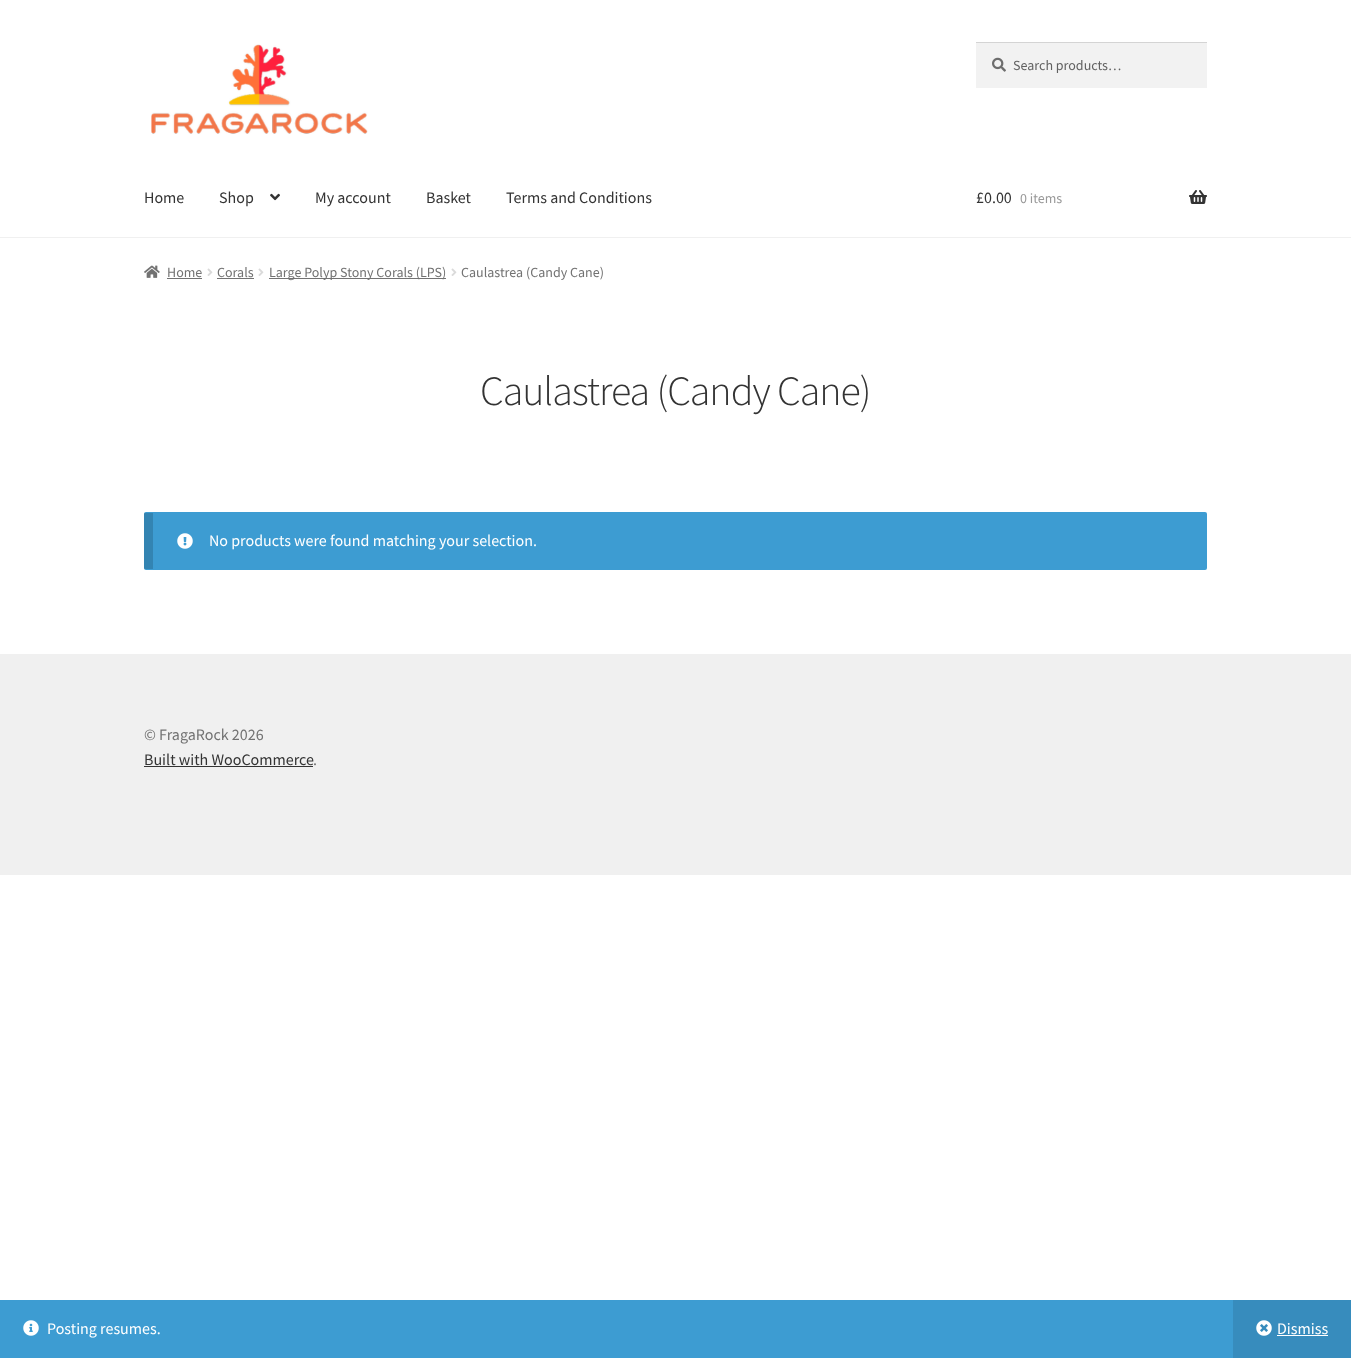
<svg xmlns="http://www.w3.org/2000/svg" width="1351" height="1358">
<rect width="100%" height="100%" fill="#fff"/>
<rect y="237" width="1351" height="1" fill="#f0f0f0"/>
<image x="151" y="44" width="217" height="90" href="media/1.png"/>
<rect x="976" y="43" width="231" height="45" fill="#f2f2f2"/>
<image x="992" y="57" width="14" height="15" href="media/2.png"/>
<rect x="976" y="42" width="231" height="1" fill="#d4d4d4"/>
<text x="1013" y="70" style="font-family:Source Sans Pro;font-size:14px;fill:#616161">Search products…</text>
<text x="144" y="203" style="font-family:Source Sans Pro;font-size:16px;fill:#333">Home</text>
<text x="219" y="203" style="font-family:Source Sans Pro;font-size:16px;fill:#333">Shop</text>
<image x="270" y="193" width="10" height="8" href="media/3.png"/>
<text x="315" y="203" style="font-family:Source Sans Pro;font-size:16px;fill:#333">My account</text>
<text x="426" y="203" style="font-family:Source Sans Pro;font-size:16px;fill:#333">Basket</text>
<text x="506" y="203" style="font-family:Source Sans Pro;font-size:16px;fill:#333">Terms and Conditions</text>
<text x="976" y="203" style="font-family:Source Sans Pro;font-size:16px;fill:#333">£0.00</text>
<text x="1020" y="203" style="font-family:Source Sans Pro;font-size:14px;fill:#999">0 items</text>
<image x="1189" y="190" width="18" height="14" href="media/4.png"/>
<image x="144" y="265" width="16" height="13" href="media/5.png"/>
<text x="167" y="277" style="font-family:Source Sans Pro;font-size:14px;fill:#727272">Home</text>
<rect x="167" y="278" width="35" height="1" fill="#727272"/>
<image x="207" y="268" width="6" height="8" href="media/6.png"/>
<text x="217" y="277" style="font-family:Source Sans Pro;font-size:14px;fill:#727272">Corals</text>
<rect x="217" y="278" width="37" height="1" fill="#727272"/>
<image x="258" y="268" width="6" height="8" href="media/6.png"/>
<rect x="269" y="278" width="177" height="1" fill="#727272"/>
<text x="269" y="277" style="font-family:Source Sans Pro;font-size:14px;fill:#727272">Large Polyp Stony Corals (LPS)</text>
<image x="451" y="268" width="6" height="8" href="media/6.png"/>
<text x="461" y="277" style="font-family:Source Sans Pro;font-size:14px;fill:#727272">Caulastrea (Candy Cane)</text>
<text x="480" y="405" style="font-family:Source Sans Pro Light;font-size:41.9px;font-weight:300;letter-spacing:-1px;fill:#333">Caulastrea (Candy Cane)</text>
<rect x="144" y="512" width="1063" height="58" rx="2" fill="#3d9cd2"/>
<rect x="144" y="513" width="9" height="56" fill="#00000026"/>
<image x="177" y="533" width="16" height="16" href="media/7.png"/>
<text x="209" y="546" style="font-family:Source Sans Pro;font-size:16px;fill:#fff">No products were found matching your selection.</text>
<rect y="654" width="1351" height="221" fill="#f0f0f0"/>
<text x="144" y="740" style="font-family:Source Sans Pro;font-size:16px;fill:#727272">© FragaRock 2026</text>
<text x="144" y="765" style="font-family:Source Sans Pro;font-size:16px;fill:#333">Built with WooCommerce</text>
<rect x="144" y="766" width="169" height="1" fill="#333"/>
<text x="313" y="765" style="font-family:Source Sans Pro;font-size:16px;fill:#727272">.</text>
<rect y="1300" width="1233" height="58" fill="#3d9cd2"/>
<image x="23" y="1320" width="16" height="16" href="media/8.png"/>
<text x="47" y="1334" style="font-family:Source Sans Pro;font-size:16px;fill:#fff">Posting resumes.</text>
<rect x="1233" y="1300" width="118" height="58" fill="#378cbd"/>
<image x="1256" y="1320" width="16" height="16" href="media/9.png"/>
<text x="1277" y="1334" style="font-family:Source Sans Pro;font-size:16px;fill:#fff">Dismiss</text>
<rect x="1277" y="1335" width="51" height="1" fill="#fff"/>
</svg>
